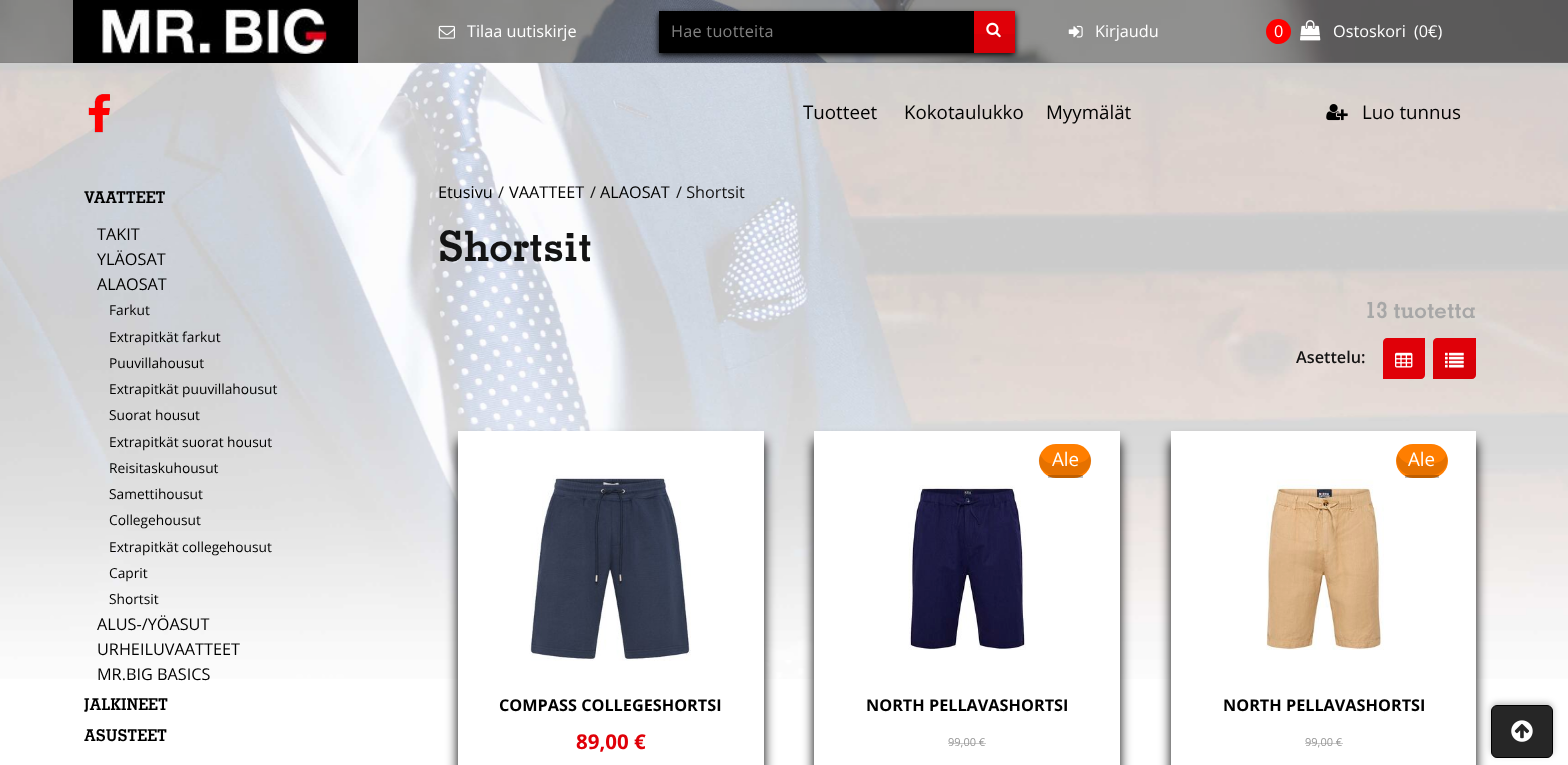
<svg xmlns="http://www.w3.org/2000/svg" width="1568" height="765">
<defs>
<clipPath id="clip1"><path d="M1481 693h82v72h-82zm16 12h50c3.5 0 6 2.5 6 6v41c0 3.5-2.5 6-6 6h-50c-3.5 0-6-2.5-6-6v-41c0-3.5 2.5-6 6-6z" clip-rule="evenodd"/></clipPath>
</defs>
<rect width="100%" height="100%" fill="#fff"/>
<image x="0" y="660" width="1568" height="19" href="media/1.png"/>
<image x="0" y="62" width="1568" height="598" href="media/2.png"/>
<image x="0" y="0" width="1568" height="63" href="media/3.png"/>
<rect width="1568" height="63" fill="#00000066"/>
<rect x="73" width="285" height="63" fill="#000"/>
<image x="102" y="8" width="225" height="46" href="media/4.png"/>
<image x="438" y="25" width="17" height="14" href="media/5.png"/>
<text x="467" y="37" style="font-family:Open Sans;font-size:16.25px;fill:#fff">Tilaa uutiskirje</text>
<rect x="659" y="14" width="356" height="41" fill="#000" filter="blur(3px)"/>
<rect x="659" y="11" width="315" height="42" fill="#000"/>
<text x="671" y="37" style="font-family:Open Sans;font-size:16.25px;letter-spacing:0.25px;fill:#808080">Hae tuotteita</text>
<rect x="974" y="11" width="41" height="23" fill="#e00008"/>
<rect x="974" y="34" width="41" height="19" fill="#d70008"/>
<image x="986" y="22" width="15" height="16" href="media/6.png"/>
<image x="1068" y="25" width="15" height="13" href="media/7.png"/>
<text x="1095" y="37" style="font-family:Open Sans;font-size:16.25px;fill:#fff">Kirjaudu</text>
<circle cx="1278.5" cy="31.5" r="12.5" fill="#f00"/>
<text x="1274" y="37" style="font-family:Open Sans;font-size:16.25px;fill:#fff">0</text>
<image x="1300" y="20" width="21" height="21" href="media/8.png"/>
<text x="1333" y="37" style="font-family:Open Sans;font-size:16.25px;fill:#fff">Ostoskori</text>
<text x="1414" y="37" style="font-family:Open Sans;font-size:16.25px;fill:#fff">(0€)</text>
<image x="88" y="94" width="22" height="39" href="media/9.png"/>
<text x="803" y="119" style="font-family:Open Sans;font-size:18.75px;fill:#000">Tuotteet</text>
<text x="904" y="119" style="font-family:Open Sans;font-size:18.75px;fill:#000">Kokotaulukko</text>
<text x="1046" y="119" style="font-family:Open Sans;font-size:18.75px;fill:#000">Myymälät</text>
<image x="1326" y="104" width="22" height="17" href="media/10.png"/>
<text x="1362" y="119" style="font-family:Open Sans;font-size:18.75px;fill:#000">Luo tunnus</text>
<text x="84" y="203" style="font-family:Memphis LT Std;font-size:16.25px;font-weight:bold;fill:#000">VAATTEET</text>
<text x="97" y="240" style="font-family:Open Sans;font-size:16.25px;fill:#000">TAKIT</text>
<text x="97" y="265" style="font-family:Open Sans;font-size:16.25px;fill:#000">YLÄOSAT</text>
<text x="97" y="290" style="font-family:Open Sans;font-size:16.25px;fill:#000">ALAOSAT</text>
<text x="109" y="315" style="font-family:Open Sans;font-size:13.75px;fill:#000">Farkut</text>
<text x="109" y="342" style="font-family:Open Sans;font-size:13.75px;fill:#000">Extrapitkät farkut</text>
<text x="109" y="368" style="font-family:Open Sans;font-size:13.75px;fill:#000">Puuvillahousut</text>
<text x="109" y="394" style="font-family:Open Sans;font-size:13.75px;fill:#000">Extrapitkät puuvillahousut</text>
<text x="109" y="420" style="font-family:Open Sans;font-size:13.75px;fill:#000">Suorat housut</text>
<text x="109" y="447" style="font-family:Open Sans;font-size:13.75px;fill:#000">Extrapitkät suorat housut</text>
<text x="109" y="473" style="font-family:Open Sans;font-size:13.75px;fill:#000">Reisitaskuhousut</text>
<text x="109" y="499" style="font-family:Open Sans;font-size:13.75px;fill:#000">Samettihousut</text>
<text x="109" y="525" style="font-family:Open Sans;font-size:13.75px;fill:#000">Collegehousut</text>
<text x="109" y="552" style="font-family:Open Sans;font-size:13.75px;fill:#000">Extrapitkät collegehousut</text>
<text x="109" y="578" style="font-family:Open Sans;font-size:13.75px;fill:#000">Caprit</text>
<text x="109" y="604" style="font-family:Open Sans;font-size:13.75px;fill:#000">Shortsit</text>
<text x="97" y="630" style="font-family:Open Sans;font-size:16.25px;fill:#000">ALUS-/YÖASUT</text>
<text x="97" y="655" style="font-family:Open Sans;font-size:16.25px;fill:#000">URHEILUVAATTEET</text>
<text x="97" y="680" style="font-family:Open Sans;font-size:16.25px;fill:#000">MR.BIG BASICS</text>
<text x="84" y="710" style="font-family:Memphis LT Std;font-size:16.25px;font-weight:bold;fill:#000">JALKINEET</text>
<text x="84" y="741" style="font-family:Memphis LT Std;font-size:16.25px;font-weight:bold;fill:#000">ASUSTEET</text>
<text x="438" y="198" style="font-family:Open Sans;font-size:16.25px;fill:#000">Etusivu</text>
<text x="498" y="198" style="font-family:Open Sans;font-size:16.25px;fill:#131313">/</text>
<text x="509" y="198" style="font-family:Open Sans;font-size:16.25px;fill:#000">VAATTEET</text>
<text x="590" y="198" style="font-family:Open Sans;font-size:16.25px;fill:#131313">/</text>
<text x="600" y="198" style="font-family:Open Sans;font-size:16.25px;fill:#000">ALAOSAT</text>
<text x="676" y="198" style="font-family:Open Sans;font-size:16.25px;fill:#131313">/ Shortsit</text>
<text x="438" y="261" style="font-family:Memphis LT Std;font-size:42px;font-weight:bold;fill:#131313">Shortsit</text>
<text x="1365" y="318" style="font-family:Memphis LT Std;font-size:22.5px;font-weight:bold;fill:#a7a7a7">13 tuotetta</text>
<text x="1296" y="363" style="font-family:Open Sans;font-size:16.25px;font-weight:600;fill:#131313">Asettelu:</text>
<path d="M1387 338h38v37c0 2-2 4-4 4h-38v-37c0-2 2-4 4-4z" fill="#e00008"/>
<image x="1395" y="352" width="18" height="16" href="media/11.png"/>
<path d="M1437 338h39v37c0 2-2 4-4 4h-39v-37c0-2 2-4 4-4z" fill="#e00008"/>
<path d="M1433 360v19h39c2 0 4-2 4-4v-19c0 2-1 4-4 4z" fill="#0000000a"/>
<image x="1445" y="352" width="19" height="16" href="media/12.png"/>
<rect x="458" y="441" width="306" height="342" fill="#000" filter="blur(6px)"/>
<rect x="458" y="431" width="306" height="334" fill="#fff"/>
<image x="529" y="475" width="162" height="186" href="media/13.png"/>
<text x="499" y="711" style="font-family:Open Sans;font-size:16.25px;font-weight:bold;fill:#000">COMPASS COLLEGESHORTSI</text>
<text x="576" y="749" style="font-family:Open Sans;font-size:20.5px;font-weight:bold;fill:#e00008">89,00 €</text>
<rect x="814" y="441" width="306" height="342" fill="#000" filter="blur(6px)"/>
<rect x="814" y="431" width="306" height="334" fill="#fff"/>
<rect x="1039" y="444" width="52" height="34" rx="17" fill="#ff7e00"/>
<path d="M1040 454c-4 10 2 19 12 21h26c10-2 16-11 12-21c-1 4-4 7-8 8c-6 3-27 3-33 1c-4-1-7-5-9-9z" fill="#0000001a"/>
<rect x="1048" y="475" width="35" height="3" fill="#00000040"/>
<text x="1052" y="466" style="font-family:Open Sans;font-size:18.75px;fill:#fff">Ale</text>
<image x="908" y="485" width="118" height="165" href="media/14.png"/>
<text x="866" y="711" style="font-family:Open Sans;font-size:16.25px;font-weight:bold;fill:#000">NORTH PELLAVASHORTSI</text>
<text x="948" y="746" style="font-family:Open Sans;font-size:11px;fill:#969696">99,00 €</text>
<rect x="948" y="743" width="38" height="1" fill="#96969680"/>
<rect x="1171" y="441" width="305" height="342" fill="#000" filter="blur(6px)"/>
<rect x="1171" y="431" width="305" height="334" fill="#fff"/>
<rect x="1396" y="444" width="52" height="34" rx="17" fill="#ff7e00"/>
<path d="M1398 454c-4 10 2 19 12 21h24c10-2 16-11 12-20c-1 3-4 6-7 7c-7 3-27 3-32 1c-4-2-8-5-9-9z" fill="#0000001a"/>
<rect x="1405" y="475" width="34" height="3" fill="#00000040"/>
<text x="1408" y="466" style="font-family:Open Sans;font-size:18.75px;fill:#fff">Ale</text>
<image x="1266" y="479" width="118" height="171" href="media/15.png"/>
<text x="1223" y="711" style="font-family:Open Sans;font-size:16.25px;font-weight:bold;fill:#000">NORTH PELLAVASHORTSI</text>
<text x="1305" y="746" style="font-family:Open Sans;font-size:11px;fill:#969696">99,00 €</text>
<rect x="1305" y="743" width="38" height="1" fill="#96969680"/>
<g clip-path="url(#clip1)">
<rect x="1491" y="703" width="62" height="52" rx="6" fill="#00000040" filter="blur(3px)"/>
</g>
<rect x="1491.5" y="705.5" width="61" height="52" rx="5.5" fill="#000000d9" stroke="#000"/>
<image x="1511" y="720" width="22" height="22" href="media/16.png"/>
</svg>
